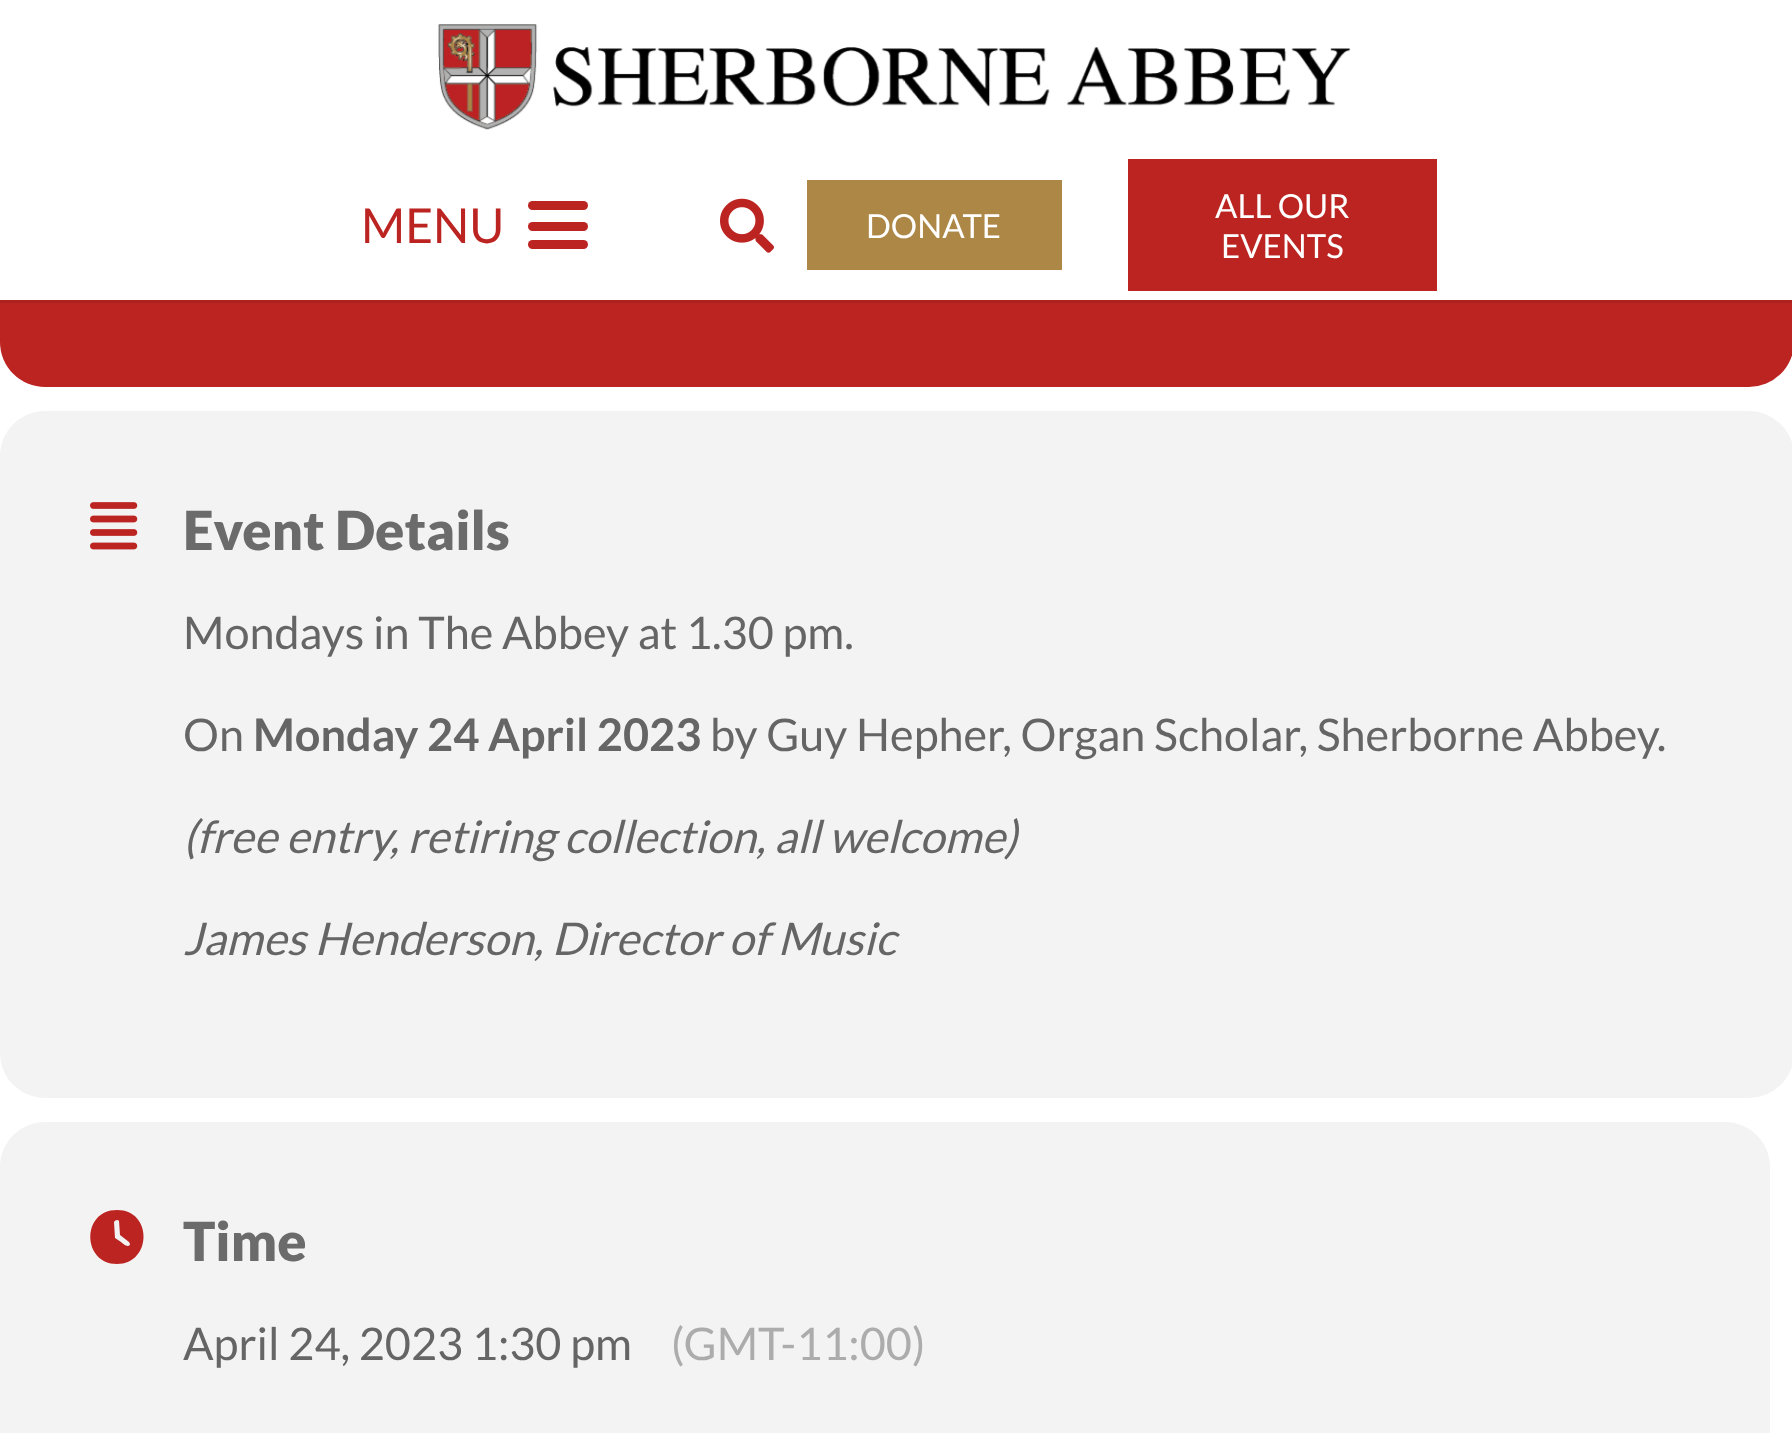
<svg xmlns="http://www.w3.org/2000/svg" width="1792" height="1433">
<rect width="100%" height="100%" fill="#fff"/>
<rect y="60" width="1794" height="327" rx="45" fill="#bc2422"/>
<rect y="60" width="1792" height="240" fill="#fff"/>
<image x="438" y="24" width="913" height="106" href="media/1.png"/>
<rect y="300" width="1792" height="3" fill="#ad211f"/>
<text x="361" y="243" style="font-family:Lato;font-size:48px;fill:#bc2422">MENU</text>
<rect x="528" y="222" width="60" height="9" rx="4.5" fill="#bc2422"/>
<rect x="528" y="201" width="60" height="9" rx="4.5" fill="#bc2422"/>
<rect x="528" y="240" width="60" height="9" rx="4.5" fill="#bc2422"/>
<image x="720" y="198" width="54" height="55" href="media/2.png"/>
<rect x="807" y="180" width="255" height="90" fill="#ac8746"/>
<text x="866" y="238" style="font-family:Lato;font-size:33px;fill:#fff">DONATE</text>
<rect x="1128" y="159" width="309" height="132" fill="#bc2422"/>
<text x="1215" y="218" style="font-family:Lato;font-size:33px;fill:#fff">ALL OUR</text>
<text x="1221" y="258" style="font-family:Lato;font-size:33px;fill:#fff">EVENTS</text>
<rect y="411" width="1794" height="687" rx="45" fill="#f3f3f3"/>
<image x="90" y="502" width="48" height="48" href="media/3.png"/>
<text x="183" y="550" style="font-family:Lato;font-size:54px;font-weight:900;fill:#6b6b6b">Event Details</text>
<text x="183" y="649" style="font-family:Lato;font-size:45px;fill:#656565">Mondays in The Abbey at 1.30 pm.</text>
<text x="183" y="751" style="font-family:Lato;font-size:45px;fill:#656565">On</text>
<text x="253" y="751" style="font-family:Lato;font-size:45px;font-weight:bold;fill:#656565">Monday 24 April 2023</text>
<text x="710" y="751" style="font-family:Lato;font-size:45px;fill:#656565">by Guy Hepher, Organ Scholar, Sherborne Abbey.</text>
<text x="183" y="853" style="font-family:Lato;font-size:45px;font-style:italic;fill:#656565">(free entry, retiring collection, all welcome)</text>
<text x="183" y="955" style="font-family:Lato;font-size:45px;font-style:italic;fill:#656565">James Henderson, Director of Music</text>
<rect y="1122" width="1770" height="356" rx="45" fill="#f3f3f3"/>
<path d="M117 1210c36 0 35 54 0 54c-35 0-36-54 0-54zm-3 12l1 16l6 4c1 1 8 7 9 2l-1-2l-9-7l-1-14c-1-2-4-1-5 1z" fill="#bc2422"/>
<text x="183" y="1261" style="font-family:Lato;font-size:54px;font-weight:900;fill:#6b6b6b">Time</text>
<text x="183" y="1360" style="font-family:Lato;font-size:45px;fill:#656565">April 24, 2023 1:30 pm</text>
<text x="671" y="1360" style="font-family:Lato;font-size:45px;fill:#acacac">(GMT-11:00)</text>
</svg>
